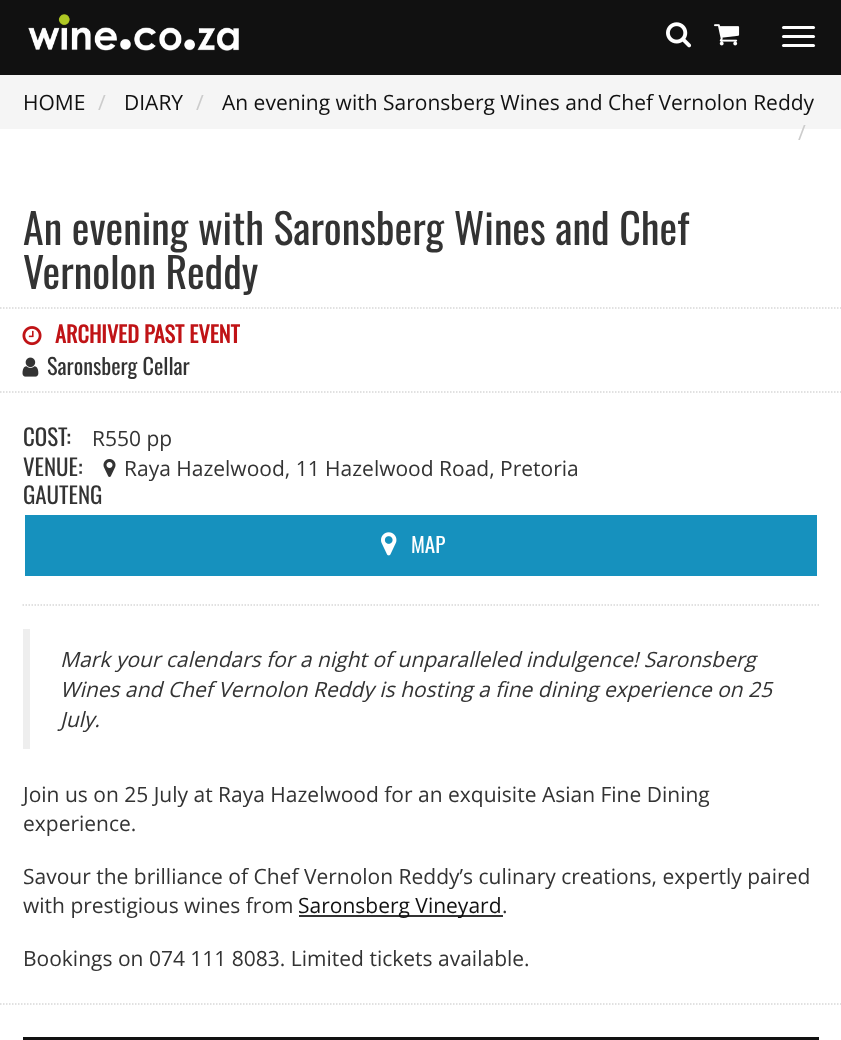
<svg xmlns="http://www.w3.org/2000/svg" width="841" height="1040">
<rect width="100%" height="100%" fill="#fff"/>
<rect width="841" height="75" fill="#111"/>
<image x="28" y="14" width="211" height="37" href="media/1.png"/>
<image x="666" y="22" width="26" height="26" href="media/2.png"/>
<image x="714" y="24" width="26" height="22" href="media/3.png"/>
<rect x="782" y="26" width="33" height="3" rx="1.5" fill="#fff"/>
<rect x="782" y="35" width="33" height="3" rx="1.5" fill="#fff"/>
<rect x="782" y="44" width="33" height="3" rx="1.5" fill="#fff"/>
<rect y="75" width="841" height="54" fill="#f5f5f5"/>
<text x="23" y="110" style="font-family:Open Sans;font-size:21px;fill:#111">HOME</text>
<text x="98" y="110" style="font-family:Open Sans;font-size:21px;fill:#ccc">/</text>
<text x="124" y="110" style="font-family:Open Sans;font-size:21px;fill:#111">DIARY</text>
<text x="196" y="110" style="font-family:Open Sans;font-size:21px;fill:#ccc">/</text>
<text x="222" y="110" style="font-family:Open Sans;font-size:21px;fill:#111">An evening with Saronsberg Wines and Chef Vernolon Reddy</text>
<text x="798" y="140" style="font-family:Open Sans;font-size:21px;fill:#ccc">/</text>
<text x="23" y="245" style="font-family:Oswald;font-size:42px;fill:#333">An evening with Saronsberg Wines and Chef</text>
<text x="23" y="289" style="font-family:Oswald;font-size:42px;fill:#333">Vernolon Reddy</text>
<path d="M0 308h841.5" fill="none" stroke="#d7d7d7" stroke-width="1.5" stroke-dasharray="1.5 1.5"/>
<path d="M0 392h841.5" fill="none" stroke="#d7d7d7" stroke-width="1.5" stroke-dasharray="1.5 1.5"/>
<image x="22" y="326" width="20" height="20" href="media/4.png"/>
<text x="55" y="343" style="font-family:Oswald;font-size:22.25px;font-weight:bold;fill:#c01316">ARCHIVED PAST EVENT</text>
<image x="22" y="357" width="17" height="20" href="media/5.png"/>
<text x="47" y="375" style="font-family:Oswald;font-size:22.25px;fill:#333">Saronsberg Cellar</text>
<text x="23" y="446" style="font-family:Oswald;font-size:23px;fill:#333">COST:</text>
<text x="92" y="446" style="font-family:Open Sans;font-size:21px;fill:#333">R550 pp</text>
<text x="23" y="476" style="font-family:Oswald;font-size:23px;fill:#333">VENUE:</text>
<image x="103" y="459" width="13" height="18" href="media/6.png"/>
<text x="124" y="476" style="font-family:Open Sans;font-size:21px;fill:#333">Raya Hazelwood, 11 Hazelwood Road, Pretoria</text>
<text x="23" y="504" style="font-family:Oswald;font-size:23px;fill:#333">GAUTENG</text>
<rect x="25" y="515" width="792" height="61" fill="#1691be"/>
<image x="381" y="532" width="16" height="24" href="media/7.png"/>
<text x="411" y="553" style="font-family:Oswald;font-size:21px;fill:#fff">MAP</text>
<path d="M22.5 605h796.5" fill="none" stroke="#d7d7d7" stroke-width="1.5" stroke-dasharray="1.5 1.5"/>
<rect x="23" y="629" width="7" height="120" fill="#eee"/>
<text x="60" y="667" style="font-family:Open Sans;font-size:21px;font-style:italic;fill:#333">Mark your calendars for a night of unparalleled indulgence! Saronsberg</text>
<text x="60" y="697" style="font-family:Open Sans;font-size:21px;font-style:italic;fill:#333">Wines and Chef Vernolon Reddy is hosting a fine dining experience on 25</text>
<text x="60" y="727" style="font-family:Open Sans;font-size:21px;font-style:italic;fill:#333">July.</text>
<text x="23" y="802" style="font-family:Open Sans;font-size:21px;fill:#333">Join us on 25 July at Raya Hazelwood for an exquisite Asian Fine Dining</text>
<text x="23" y="831" style="font-family:Open Sans;font-size:21px;fill:#333">experience.</text>
<text x="23" y="884" style="font-family:Open Sans;font-size:21px;fill:#333">Savour the brilliance of Chef Vernolon Reddy’s culinary creations, expertly paired</text>
<text x="23" y="913" style="font-family:Open Sans;font-size:21px;fill:#333">with prestigious wines from</text>
<rect x="299" y="915" width="204" height="2" fill="#333"/>
<text x="298" y="913" style="font-family:Open Sans;font-size:21px;fill:#111">Saronsberg Vineyard</text>
<text x="502" y="913" style="font-family:Open Sans;font-size:21px;fill:#333">.</text>
<text x="23" y="966" style="font-family:Open Sans;font-size:21px;fill:#333">Bookings on 074 111 8083. Limited tickets available.</text>
<path d="M0 1004h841.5" fill="none" stroke="#d7d7d7" stroke-width="1.5" stroke-dasharray="1.5 1.5"/>
<rect x="23" y="1037" width="796" height="3" fill="#111"/>
</svg>
